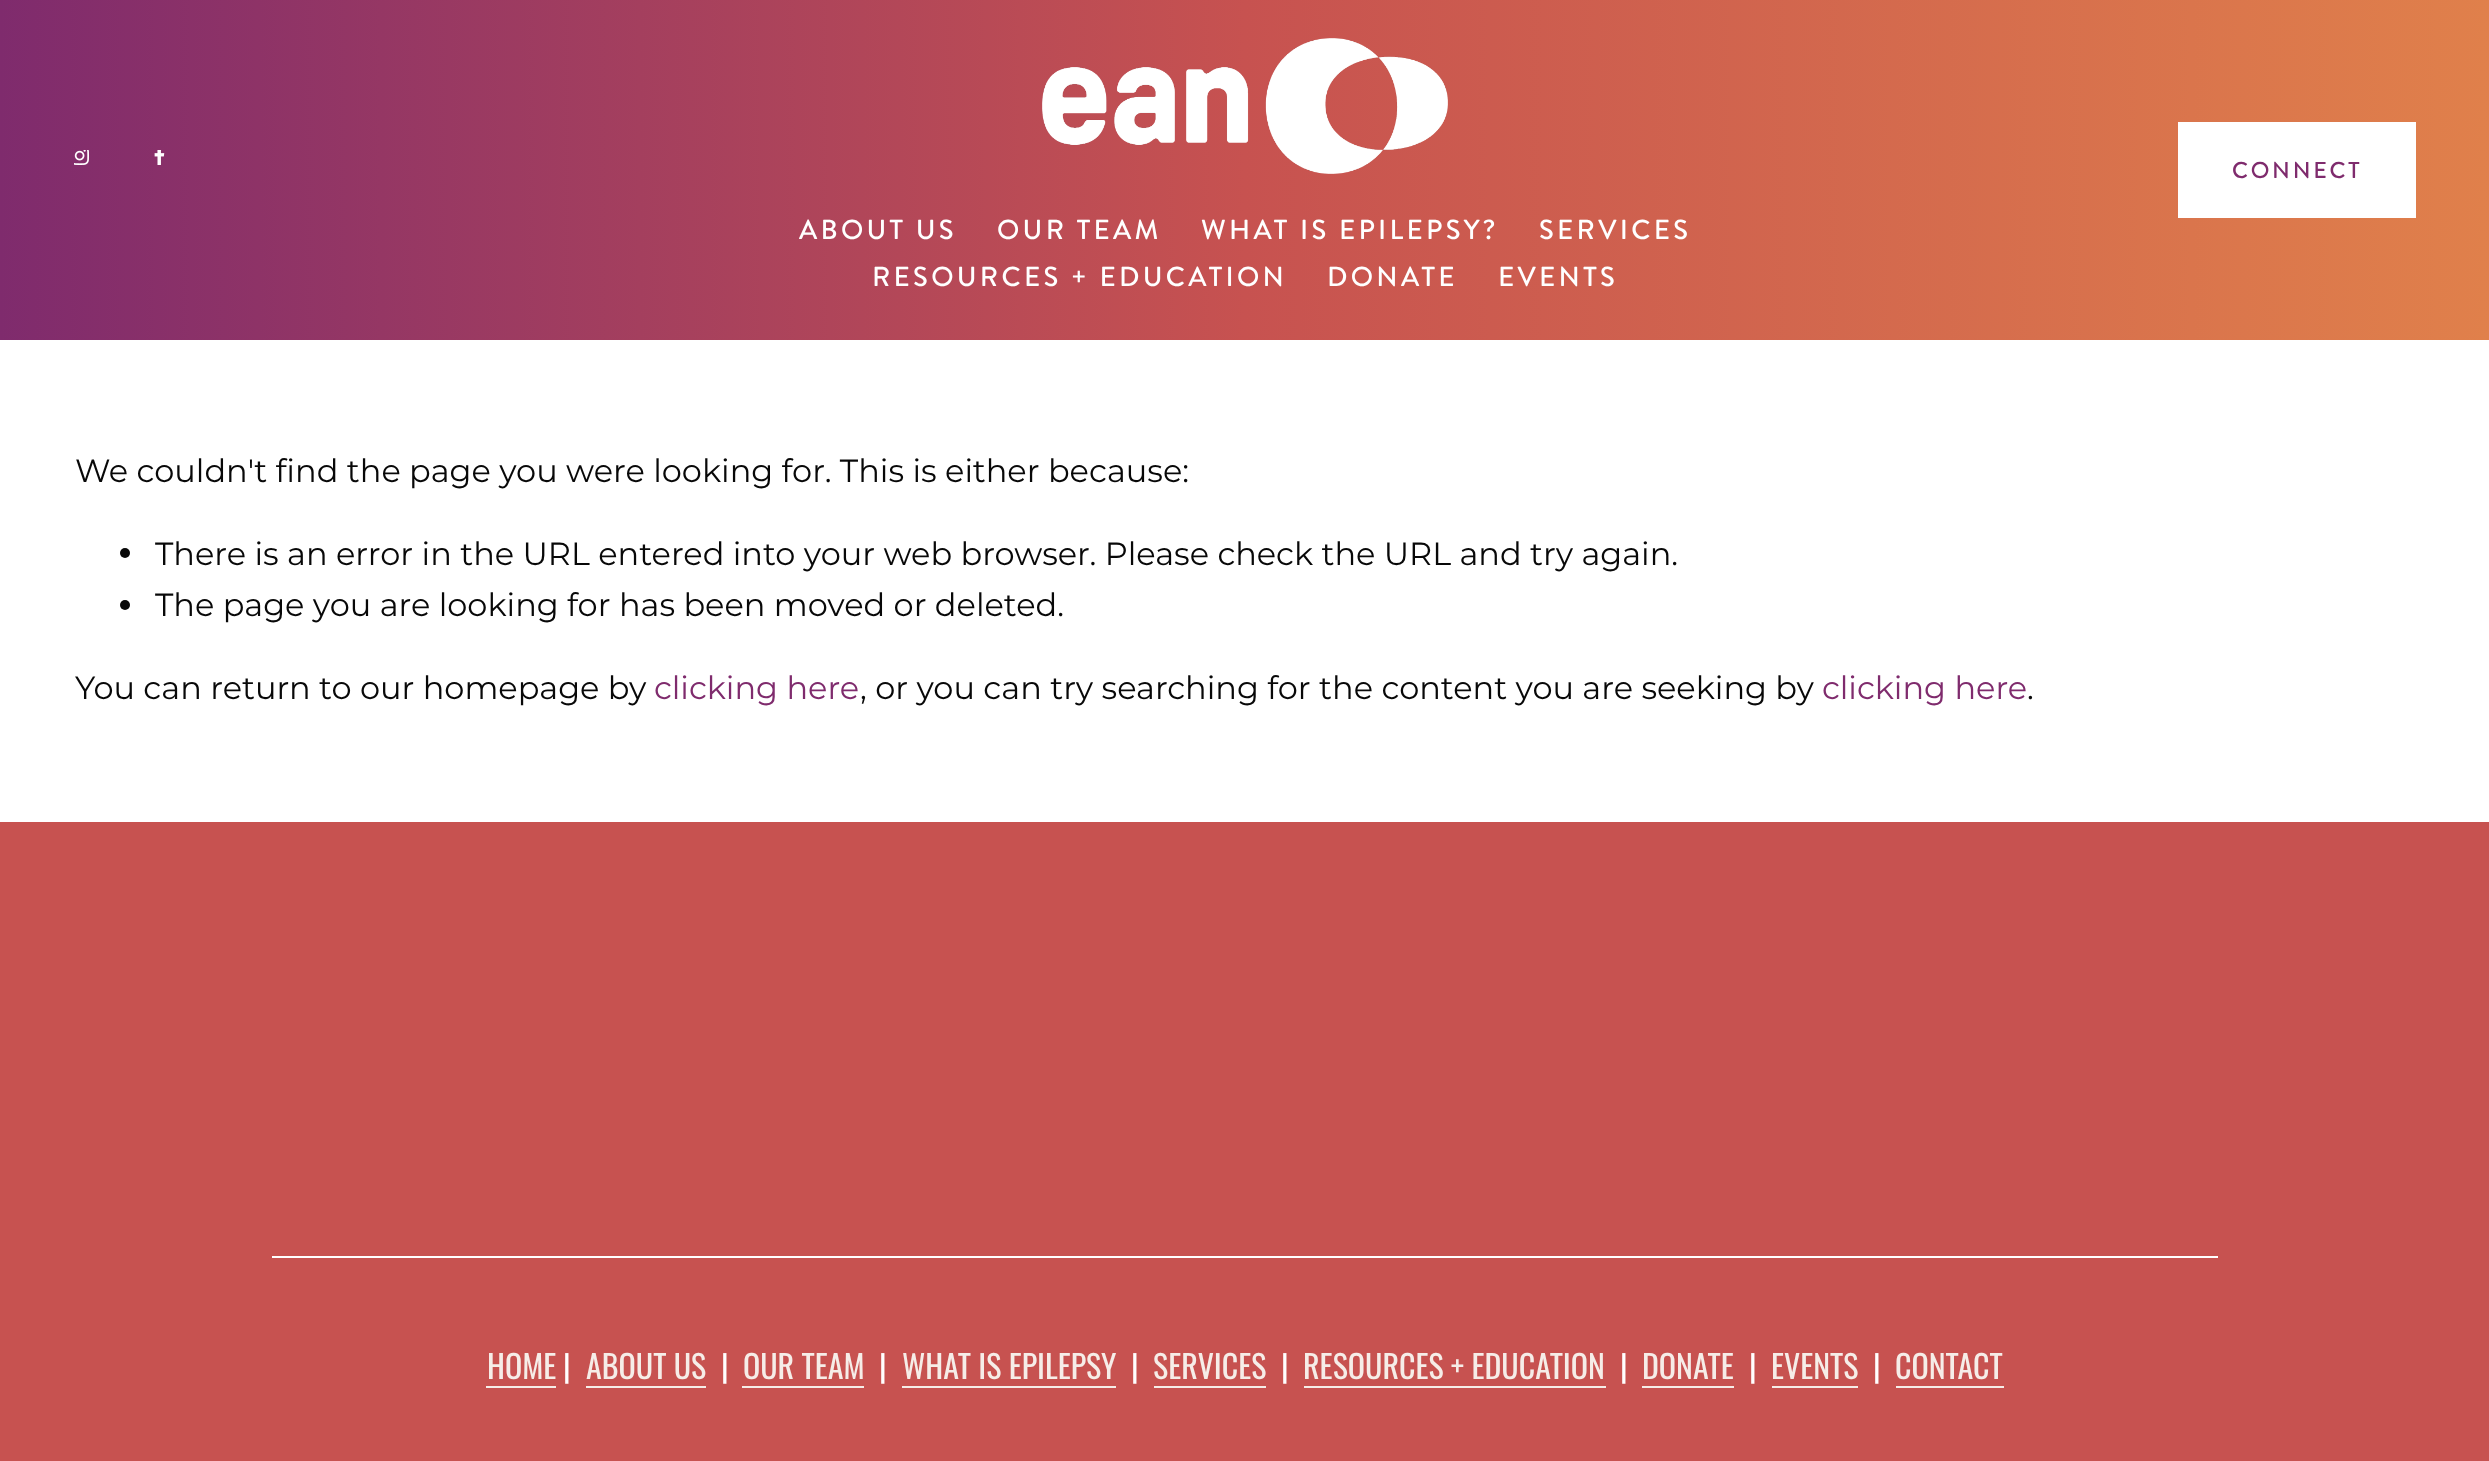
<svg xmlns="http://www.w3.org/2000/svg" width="2489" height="1461">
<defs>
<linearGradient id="g1" gradientUnits="userSpaceOnUse" x1="0" y1="170" x2="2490" y2="170"><stop offset="0" stop-color="#7f2b6d"/><stop offset="0.5" stop-color="#c75250"/><stop offset="1" stop-color="#e0804b"/></linearGradient>
</defs>
<rect width="100%" height="100%" fill="#fff"/>
<rect width="2489" height="340" fill="url(#g1)"/>
<image x="74" y="150" width="15" height="15" href="media/1.png"/>
<image x="154" y="150" width="11" height="15" href="media/2.png"/>
<rect x="2178" y="122" width="238" height="96" fill="#fff"/>
<text x="2232" y="178" style="font-family:Brandon Grotesque;font-size:23px;font-weight:500;letter-spacing:2.75px;fill:#7f2b6d">CONNECT</text>
<image x="1042" y="38" width="406" height="136" href="media/3.png"/>
<text x="799" y="239" style="font-family:Brandon Grotesque;font-size:27.5px;font-weight:500;letter-spacing:3.3px;fill:#fff">ABOUT US</text>
<text x="997" y="239" style="font-family:Brandon Grotesque;font-size:27.5px;font-weight:500;letter-spacing:3.3px;fill:#fff">OUR TEAM</text>
<text x="1201" y="239" style="font-family:Brandon Grotesque;font-size:27.5px;font-weight:500;letter-spacing:3.3px;fill:#fff">WHAT IS EPILEPSY?</text>
<text x="1539" y="239" style="font-family:Brandon Grotesque;font-size:27.5px;font-weight:500;letter-spacing:3.3px;fill:#fff">SERVICES</text>
<text x="872" y="286" style="font-family:Brandon Grotesque;font-size:27.5px;font-weight:500;letter-spacing:3.3px;fill:#fff">RESOURCES + EDUCATION</text>
<text x="1327" y="286" style="font-family:Brandon Grotesque;font-size:27.5px;font-weight:500;letter-spacing:3.3px;fill:#fff">DONATE</text>
<text x="1498" y="286" style="font-family:Brandon Grotesque;font-size:27.5px;font-weight:500;letter-spacing:3.3px;fill:#fff">EVENTS</text>
<text x="75" y="482" style="font-family:Montserrat;font-size:32px;fill:#080808">We couldn't find the page you were looking for. This is either because:</text>
<circle cx="125" cy="553" r="5" fill="#080808"/>
<text x="155" y="565" style="font-family:Montserrat;font-size:32px;fill:#080808">There is an error in the URL entered into your web browser. Please check the URL and try again.</text>
<circle cx="125" cy="605" r="5" fill="#080808"/>
<text x="155" y="616" style="font-family:Montserrat;font-size:32px;fill:#080808">The page you are looking for has been moved or deleted.</text>
<text x="75" y="699" style="font-family:Montserrat;font-size:32px;fill:#080808">You can return to our homepage by</text>
<text x="654" y="699" style="font-family:Montserrat;font-size:32px;fill:#7f2b6d">clicking here</text>
<text x="860" y="699" style="font-family:Montserrat;font-size:32px;fill:#080808">, or you can try searching for the content you are seeking by</text>
<text x="1822" y="699" style="font-family:Montserrat;font-size:32px;fill:#7f2b6d">clicking here</text>
<text x="2027" y="699" style="font-family:Montserrat;font-size:32px;fill:#080808">.</text>
<rect y="822" width="2489" height="639" fill="#c75250"/>
<rect x="272" y="1256" width="1946" height="2" fill="#fff"/>
<text x="487" y="1379" style="font-family:Oswald;font-size:32px;fill:#f6ede8">HOME</text>
<rect x="486" y="1386" width="70" height="2" fill="#f6ede8"/>
<text x="563" y="1379" style="font-family:Oswald;font-size:32px;fill:#fff">|</text>
<text x="586" y="1379" style="font-family:Oswald;font-size:32px;fill:#f6ede8">ABOUT US</text>
<rect x="586" y="1386" width="120" height="2" fill="#f6ede8"/>
<text x="721" y="1379" style="font-family:Oswald;font-size:32px;fill:#fff">|</text>
<text x="743" y="1379" style="font-family:Oswald;font-size:32px;fill:#f6ede8">OUR TEAM</text>
<rect x="742" y="1386" width="122" height="2" fill="#f6ede8"/>
<text x="879" y="1379" style="font-family:Oswald;font-size:32px;fill:#fff">|</text>
<text x="902" y="1379" style="font-family:Oswald;font-size:32px;fill:#f6ede8">WHAT IS EPILEPSY</text>
<rect x="902" y="1386" width="214" height="2" fill="#f6ede8"/>
<text x="1131" y="1379" style="font-family:Oswald;font-size:32px;fill:#fff">|</text>
<text x="1153" y="1379" style="font-family:Oswald;font-size:32px;fill:#f6ede8">SERVICES</text>
<rect x="1154" y="1386" width="112" height="2" fill="#f6ede8"/>
<text x="1281" y="1379" style="font-family:Oswald;font-size:32px;fill:#fff">|</text>
<text x="1303" y="1379" style="font-family:Oswald;font-size:32px;fill:#f6ede8">RESOURCES + EDUCATION</text>
<rect x="1304" y="1386" width="302" height="2" fill="#f6ede8"/>
<text x="1620" y="1379" style="font-family:Oswald;font-size:32px;fill:#fff">|</text>
<text x="1642" y="1379" style="font-family:Oswald;font-size:32px;fill:#f6ede8">DONATE</text>
<rect x="1642" y="1386" width="92" height="2" fill="#f6ede8"/>
<text x="1749" y="1379" style="font-family:Oswald;font-size:32px;fill:#fff">|</text>
<text x="1771" y="1379" style="font-family:Oswald;font-size:32px;fill:#f6ede8">EVENTS</text>
<rect x="1772" y="1386" width="86" height="2" fill="#f6ede8"/>
<text x="1873" y="1379" style="font-family:Oswald;font-size:32px;fill:#fff">|</text>
<text x="1895" y="1379" style="font-family:Oswald;font-size:32px;fill:#f6ede8">CONTACT</text>
<rect x="1896" y="1386" width="108" height="2" fill="#f6ede8"/>
</svg>
